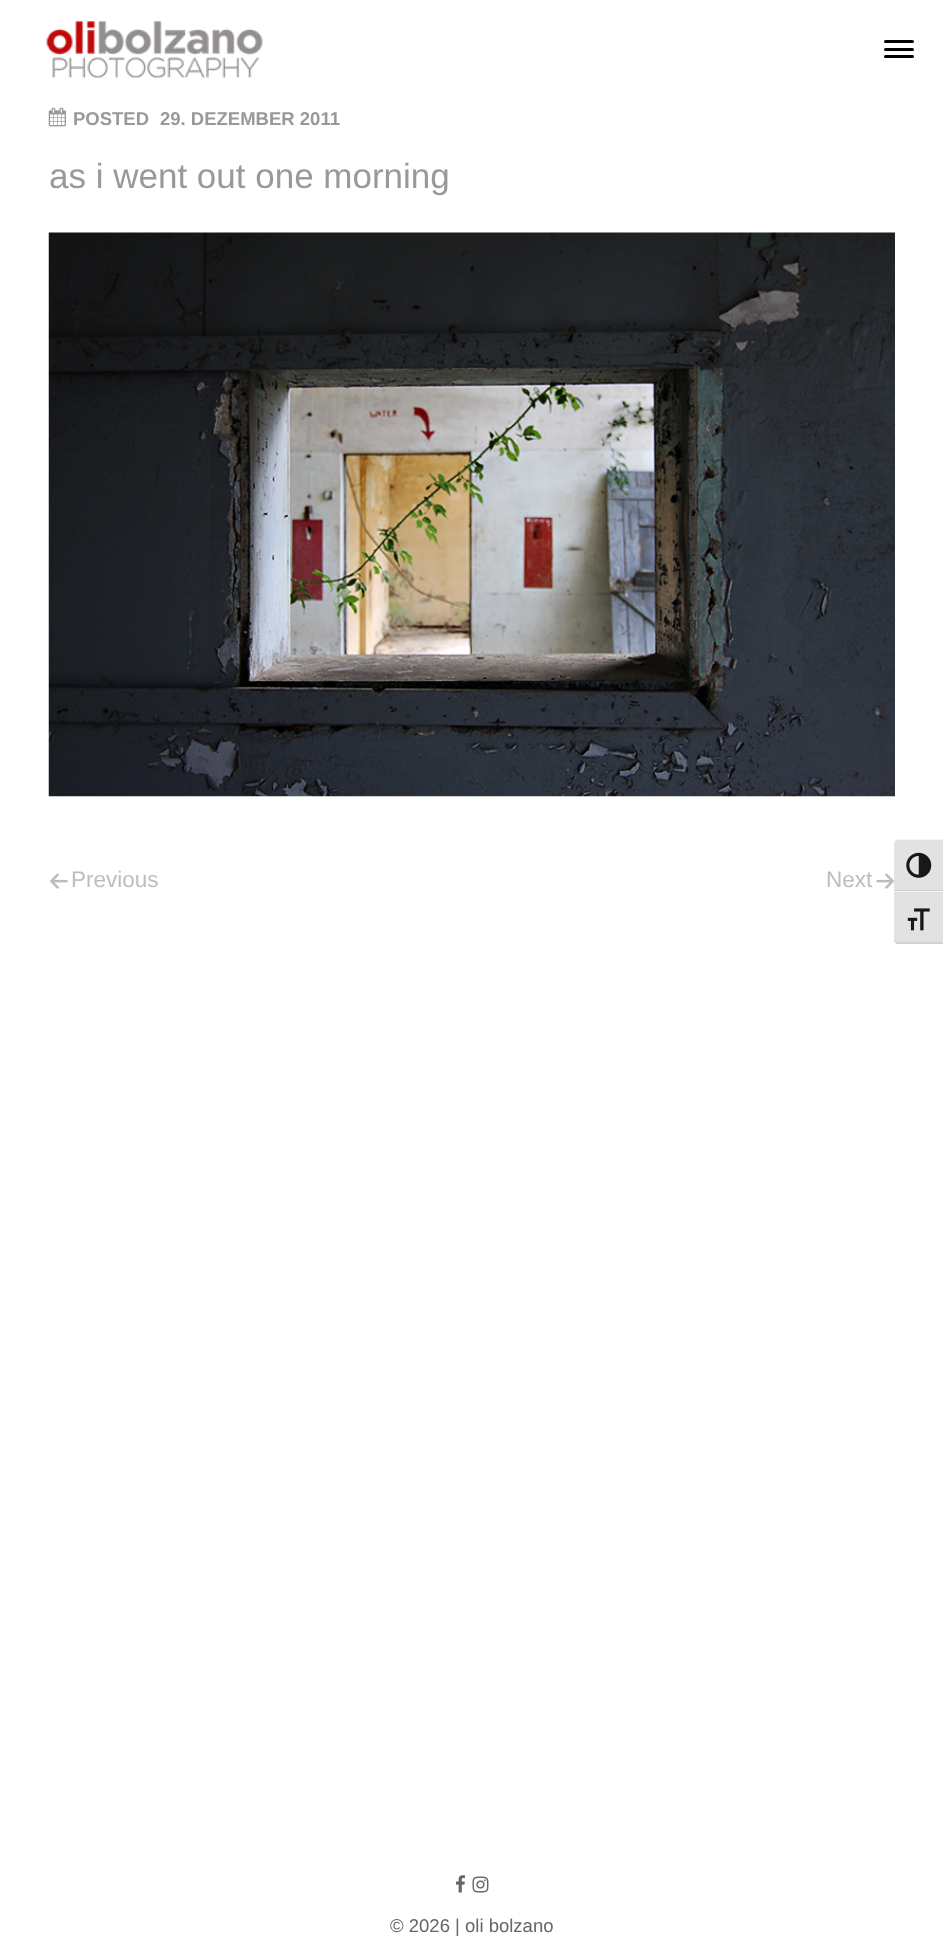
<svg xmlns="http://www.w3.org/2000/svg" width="943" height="1950">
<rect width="100%" height="100%" fill="#fff"/>
<image x="46" y="21" width="217" height="57" href="media/1.png"/>
<rect x="884" y="48" width="30" height="3" rx="1.5" fill="#000"/>
<rect x="884" y="40" width="30" height="3" rx="1.5" fill="#000"/>
<rect x="884" y="55" width="30" height="3" rx="1.5" fill="#000"/>
<image x="48" y="107" width="18" height="20" href="media/2.png"/>
<text x="73" y="125" style="font-family:Liberation Sans;font-size:18.5px;font-weight:bold;fill:#999">POSTED</text>
<text x="160" y="125" style="font-family:Liberation Sans;font-size:18.5px;font-weight:bold;fill:#999">29. DEZEMBER 2011</text>
<text x="49" y="188" style="font-family:Liberation Sans;font-size:35px;fill:#999">as i went out one morning</text>
<image x="48" y="232" width="847" height="565" href="media/3.png"/>
<image x="50" y="873" width="18" height="16" href="media/4.png"/>
<text x="71" y="887" style="font-family:Liberation Sans;font-size:22.5px;fill:#bdbdbd">Previous</text>
<text x="826" y="887" style="font-family:Liberation Sans;font-size:22.5px;fill:#bdbdbd">Next</text>
<image x="876" y="873" width="18" height="16" href="media/5.png"/>
<image x="456" y="1875" width="9" height="18" href="media/6.png"/>
<image x="472" y="1876" width="17" height="17" href="media/7.png"/>
<text x="390" y="1932" style="font-family:Liberation Sans;font-size:18.5px;fill:#666">© 2026 | oli bolzano</text>
<path d="M899 839h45v52h-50v-47c0-3 2-5 5-5z" fill="#e2e2e2"/>
<path d="M899 839h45v1h-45c-3 0-5 2-5 4c0-3 2-5 5-5z" fill="#f5f5f5"/>
<rect x="894" y="890" width="49" height="1" fill="#d2d2d2"/>
<image x="906" y="852" width="26" height="26" href="media/8.png"/>
<path d="M894 891h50v53h-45c-3 0-5-2-5-5z" fill="#e2e2e2"/>
<rect x="894" y="891" width="49" height="1" fill="#f5f5f5"/>
<path d="M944 944h-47c-2-1-3-3-3-5c0 2 2 3 5 3h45z" fill="#d2d2d2"/>
<image x="907" y="908" width="23" height="23" href="media/9.png"/>
</svg>
